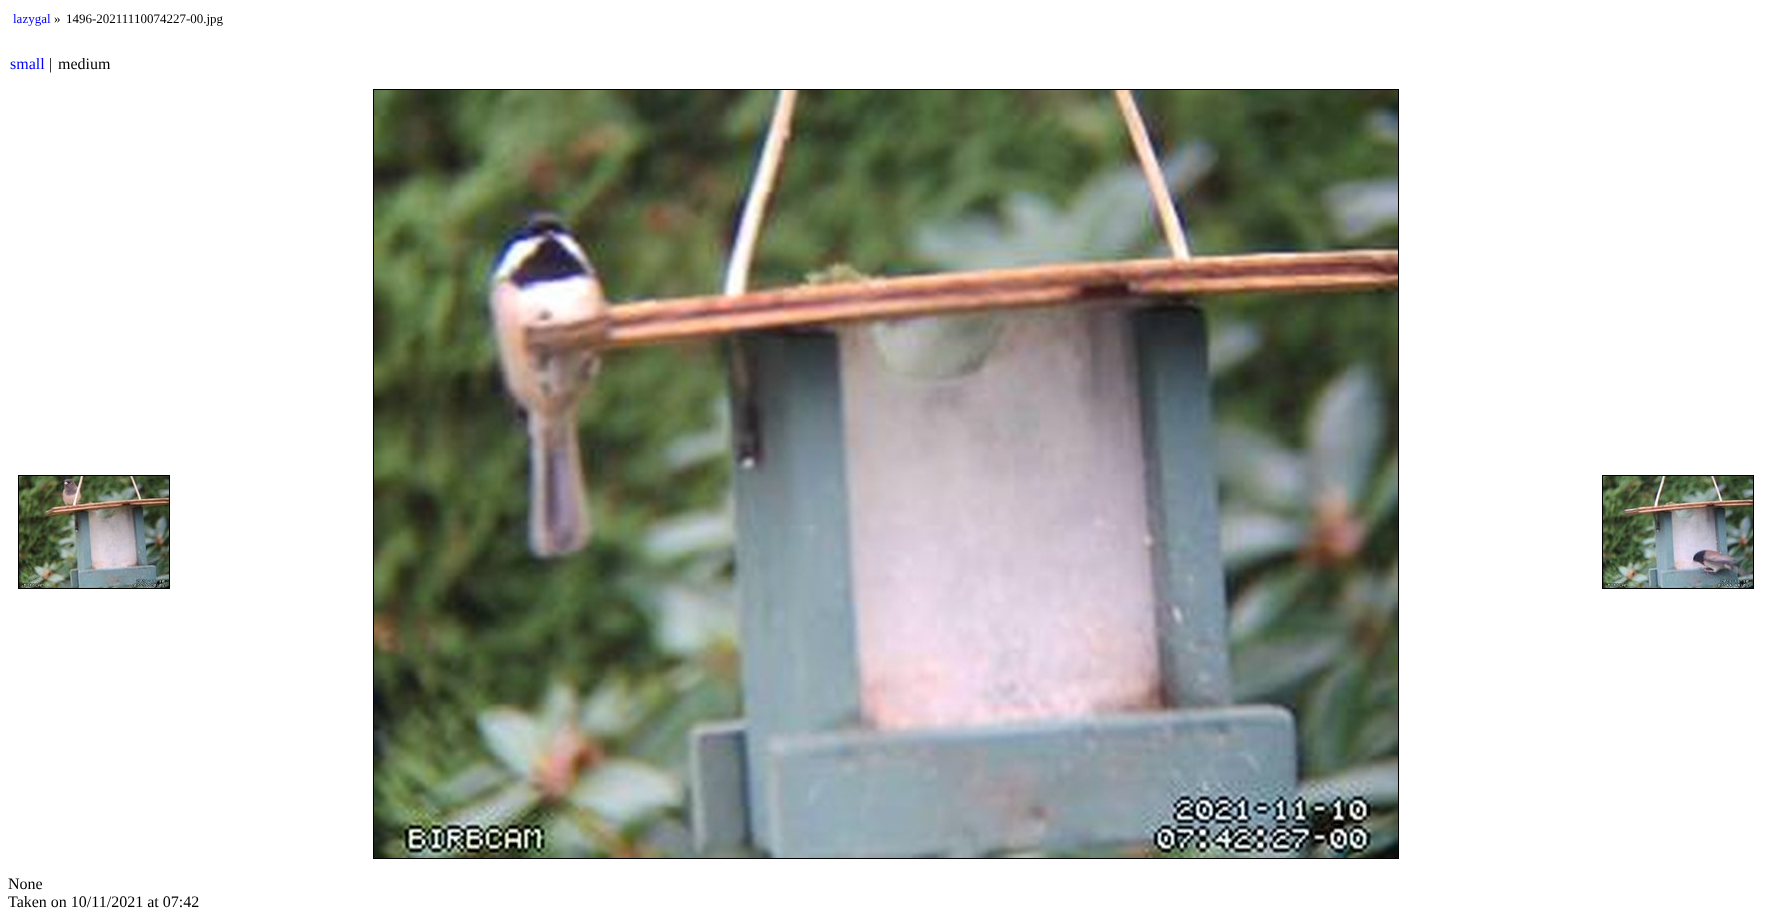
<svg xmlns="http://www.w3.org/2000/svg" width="1772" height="917">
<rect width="100%" height="100%" fill="#fff"/>
<text x="13" y="23" style="font-family:Liberation Serif;font-size:13px;fill:#00f">lazygal</text>
<text x="54" y="23" style="font-family:Liberation Serif;font-size:13px;fill:#000">»</text>
<text x="66" y="23" style="font-family:Liberation Serif;font-size:13px;fill:#000">1496-20211110074227-00.jpg</text>
<text x="10" y="69" style="font-family:Liberation Serif;font-size:16px;fill:#00f">small</text>
<text x="49" y="69" style="font-family:Liberation Serif;font-size:16px;fill:#000">|</text>
<text x="58" y="69" style="font-family:Liberation Serif;font-size:16px;fill:#000">medium</text>
<rect x="18.5" y="475.5" width="151" height="113" fill="none" stroke="#000"/>
<image x="19" y="476" width="150" height="112" href="media/1.png"/>
<rect x="1602.5" y="475.5" width="151" height="113" fill="none" stroke="#000"/>
<image x="1603" y="476" width="150" height="112" href="media/2.png"/>
<rect x="373.5" y="89.5" width="1025" height="769" fill="none" stroke="#000"/>
<image x="374" y="90" width="1024" height="768" href="media/3.png"/>
<text x="8" y="889" style="font-family:Liberation Serif;font-size:16px;fill:#000">None</text>
<text x="8" y="907" style="font-family:Liberation Serif;font-size:16px;fill:#000">Taken on 10/11/2021 at 07:42</text>
</svg>
